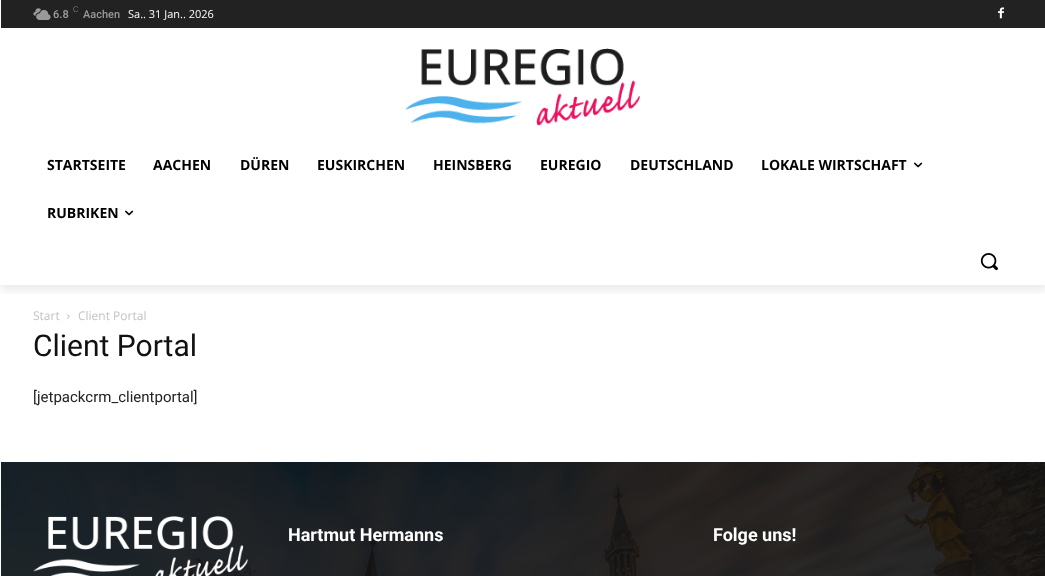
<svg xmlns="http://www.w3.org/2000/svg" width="1045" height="576">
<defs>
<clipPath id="clip1"><rect x="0" y="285" width="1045" height="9"/></clipPath>
</defs>
<rect width="100%" height="100%" fill="#fff"/>
<rect x="1" width="1044" height="28" fill="#222"/>
<image x="33" y="8" width="18" height="12" href="media/1.png"/>
<image x="998" y="7" width="6" height="12" href="media/2.png"/>
<image x="405" y="48" width="235" height="78" href="media/3.png"/>
<g clip-path="url(#clip1)">
<rect x="1" y="6" width="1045" height="285" fill="#00000014" filter="blur(4px)"/>
</g>
<text x="53" y="18" style="font-family:Roboto;font-size:11px;font-weight:600;fill:#999">6.8</text>
<text x="73" y="12" style="font-family:Roboto;font-size:8px;font-weight:300;fill:#999">C</text>
<text x="83" y="18" style="font-family:Roboto;font-size:11px;font-weight:500;fill:#999">Aachen</text>
<text x="128" y="18" style="font-family:Open Sans;font-size:11px;fill:#fff">Sa.. 31 Jan.. 2026</text>
<text x="47" y="170" style="font-family:Open Sans;font-size:14px;font-weight:bold;fill:#000">STARTSEITE</text>
<text x="153" y="170" style="font-family:Open Sans;font-size:14px;font-weight:bold;fill:#000">AACHEN</text>
<text x="240" y="170" style="font-family:Open Sans;font-size:14px;font-weight:bold;fill:#000">DÜREN</text>
<text x="317" y="170" style="font-family:Open Sans;font-size:14px;font-weight:bold;fill:#000">EUSKIRCHEN</text>
<text x="433" y="170" style="font-family:Open Sans;font-size:14px;font-weight:bold;fill:#000">HEINSBERG</text>
<text x="540" y="170" style="font-family:Open Sans;font-size:14px;font-weight:bold;fill:#000">EUREGIO</text>
<text x="630" y="170" style="font-family:Open Sans;font-size:14px;font-weight:bold;fill:#000">DEUTSCHLAND</text>
<text x="761" y="170" style="font-family:Open Sans;font-size:14px;font-weight:bold;fill:#000">LOKALE WIRTSCHAFT</text>
<image x="914" y="162" width="9" height="6" href="media/4.png"/>
<text x="47" y="218" style="font-family:Open Sans;font-size:14px;font-weight:bold;fill:#000">RUBRIKEN</text>
<image x="125" y="210" width="9" height="6" href="media/4.png"/>
<image x="980" y="253" width="18" height="18" href="media/5.png"/>
<text x="33" y="320" style="font-family:Open Sans;font-size:12px;fill:#c3c3c3">Start</text>
<image x="67" y="314" width="3" height="5" href="media/6.png"/>
<text x="78" y="320" style="font-family:Open Sans;font-size:12px;fill:#c3c3c3">Client Portal</text>
<text x="33" y="356" style="font-family:Roboto;font-size:30px;fill:#111">Client Portal</text>
<text x="33" y="402" style="font-family:Roboto;font-size:15px;fill:#222">[jetpackcrm_clientportal]</text>
<rect x="1" y="462" width="1044" height="114" fill="#111"/>
<image x="0" y="462" width="1045" height="114" href="media/7.png"/>
<image x="33" y="516" width="215" height="60" href="media/8.png"/>
<text x="288" y="541" style="font-family:Roboto;font-size:18px;font-weight:bold;fill:#fff">Hartmut Hermanns</text>
<text x="713" y="541" style="font-family:Roboto;font-size:18px;font-weight:bold;fill:#fff">Folge uns!</text>
</svg>
